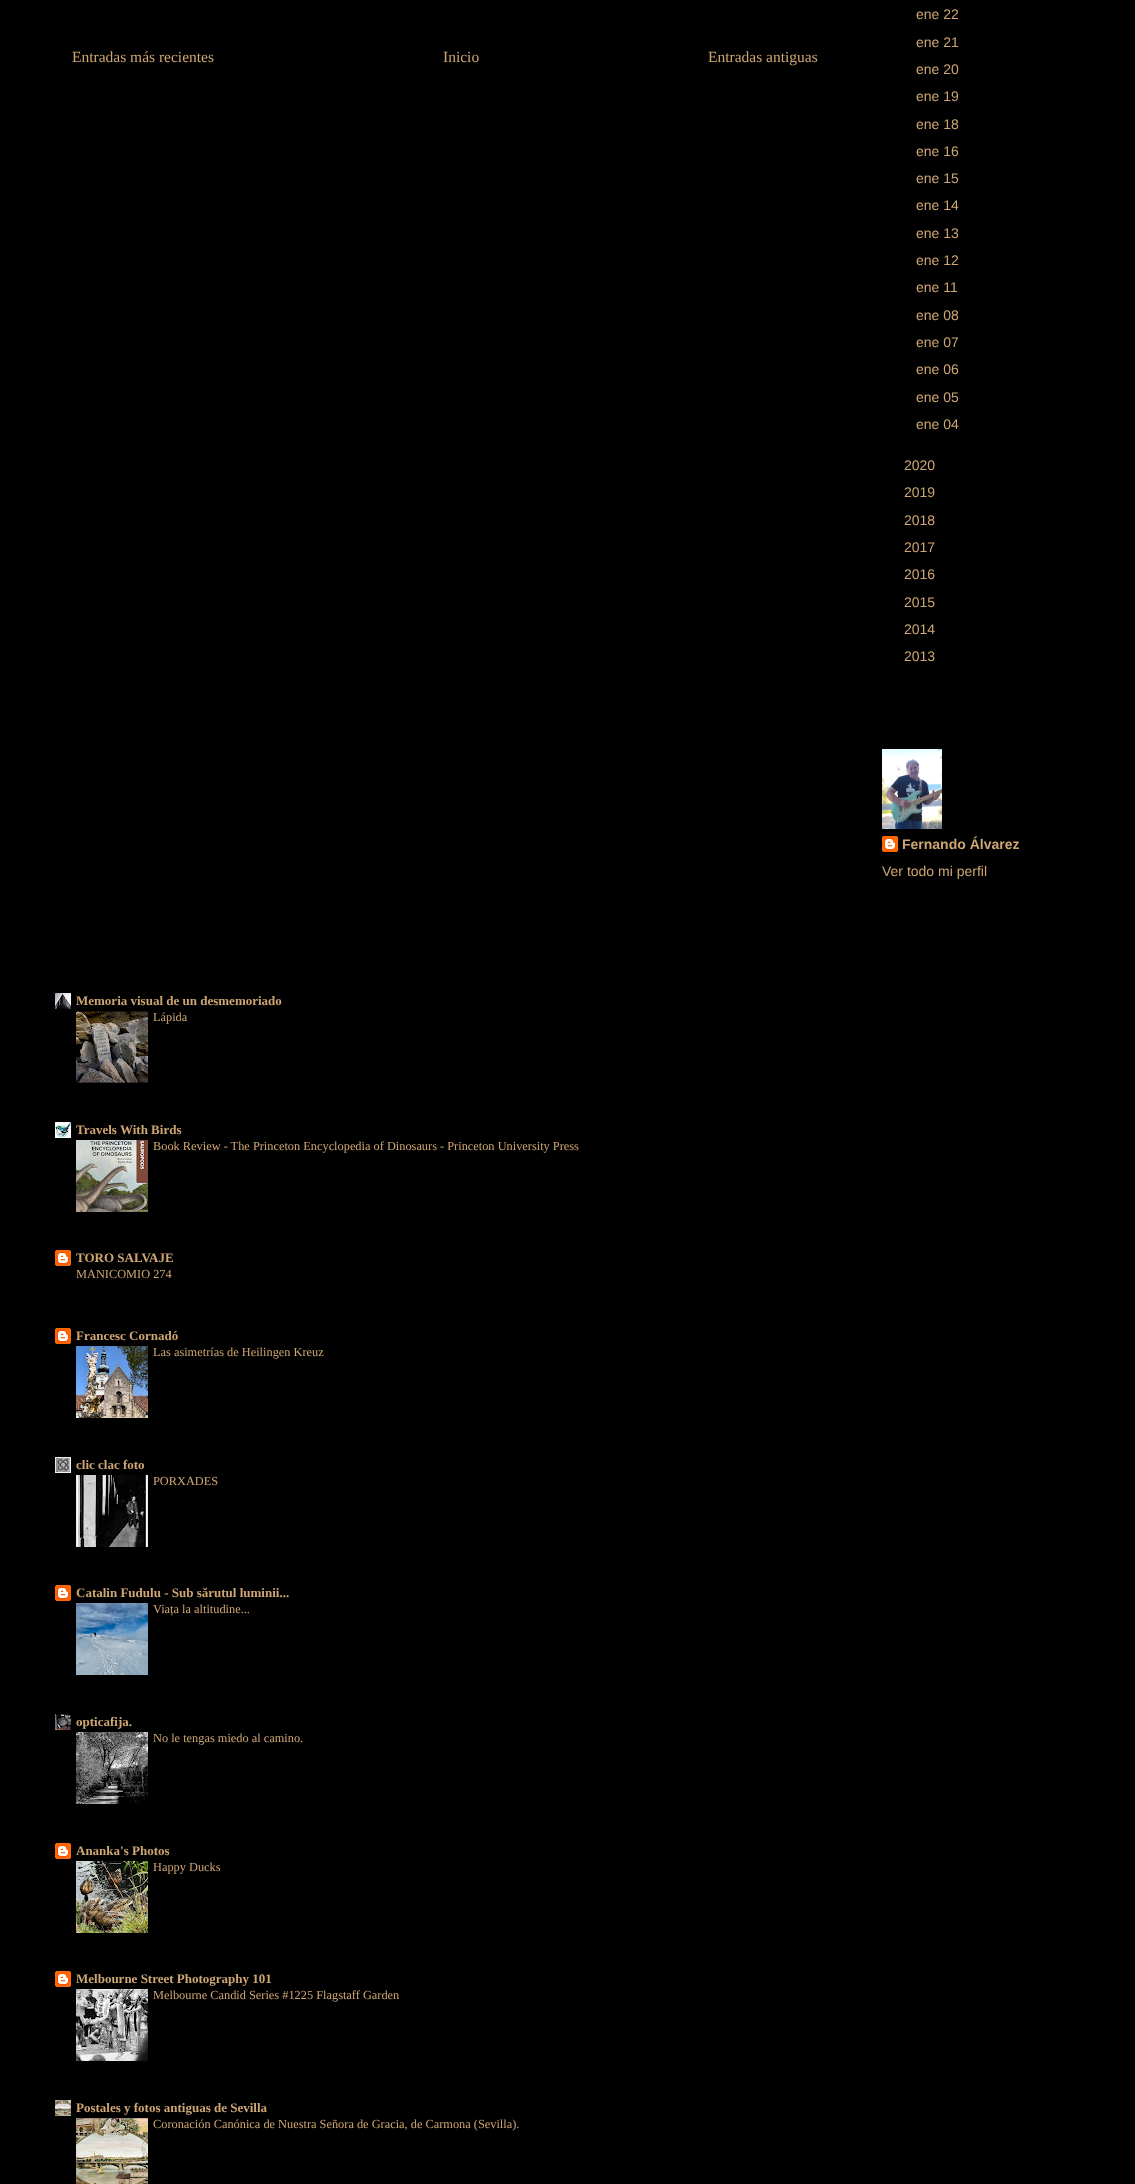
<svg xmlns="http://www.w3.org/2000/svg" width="1135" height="2184">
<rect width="100%" height="100%" fill="#000"/>
<text x="72" y="62" style="font-family:Liberation Serif;font-size:15.5px;fill:#cea673">Entradas más recientes</text>
<text x="443" y="62" style="font-family:Liberation Serif;font-size:15.5px;fill:#cea673">Inicio</text>
<text x="708" y="62" style="font-family:Liberation Serif;font-size:15.5px;fill:#cea673">Entradas antiguas</text>
<text x="916" y="19" style="font-family:Liberation Sans;font-size:14px;fill:#cea673">ene 22</text>
<text x="916" y="47" style="font-family:Liberation Sans;font-size:14px;fill:#cea673">ene 21</text>
<text x="916" y="74" style="font-family:Liberation Sans;font-size:14px;fill:#cea673">ene 20</text>
<text x="916" y="101" style="font-family:Liberation Sans;font-size:14px;fill:#cea673">ene 19</text>
<text x="916" y="129" style="font-family:Liberation Sans;font-size:14px;fill:#cea673">ene 18</text>
<text x="916" y="156" style="font-family:Liberation Sans;font-size:14px;fill:#cea673">ene 16</text>
<text x="916" y="183" style="font-family:Liberation Sans;font-size:14px;fill:#cea673">ene 15</text>
<text x="916" y="210" style="font-family:Liberation Sans;font-size:14px;fill:#cea673">ene 14</text>
<text x="916" y="238" style="font-family:Liberation Sans;font-size:14px;fill:#cea673">ene 13</text>
<text x="916" y="265" style="font-family:Liberation Sans;font-size:14px;fill:#cea673">ene 12</text>
<text x="916" y="292" style="font-family:Liberation Sans;font-size:14px;fill:#cea673">ene 11</text>
<text x="916" y="320" style="font-family:Liberation Sans;font-size:14px;fill:#cea673">ene 08</text>
<text x="916" y="347" style="font-family:Liberation Sans;font-size:14px;fill:#cea673">ene 07</text>
<text x="916" y="374" style="font-family:Liberation Sans;font-size:14px;fill:#cea673">ene 06</text>
<text x="916" y="402" style="font-family:Liberation Sans;font-size:14px;fill:#cea673">ene 05</text>
<text x="916" y="429" style="font-family:Liberation Sans;font-size:14px;fill:#cea673">ene 04</text>
<text x="904" y="470" style="font-family:Liberation Sans;font-size:14px;fill:#cea673">2020</text>
<text x="904" y="497" style="font-family:Liberation Sans;font-size:14px;fill:#cea673">2019</text>
<text x="904" y="525" style="font-family:Liberation Sans;font-size:14px;fill:#cea673">2018</text>
<text x="904" y="552" style="font-family:Liberation Sans;font-size:14px;fill:#cea673">2017</text>
<text x="904" y="579" style="font-family:Liberation Sans;font-size:14px;fill:#cea673">2016</text>
<text x="904" y="607" style="font-family:Liberation Sans;font-size:14px;fill:#cea673">2015</text>
<text x="904" y="634" style="font-family:Liberation Sans;font-size:14px;fill:#cea673">2014</text>
<text x="904" y="661" style="font-family:Liberation Sans;font-size:14px;fill:#cea673">2013</text>
<image x="882" y="749" width="60" height="80" href="media/1.png"/>
<image x="882" y="836" width="16" height="16" href="media/2.png"/>
<text x="902" y="849" style="font-family:Liberation Sans;font-size:14px;font-weight:bold;fill:#cea673">Fernando Álvarez</text>
<text x="882" y="876" style="font-family:Liberation Sans;font-size:14px;fill:#cea673">Ver todo mi perfil</text>
<image x="55" y="993" width="16" height="16" href="media/3.png"/>
<text x="76" y="1005" style="font-family:Liberation Serif;font-size:13px;font-weight:bold;fill:#cea673">Memoria visual de un desmemoriado</text>
<image x="76" y="1011" width="72" height="72" href="media/4.png"/>
<text x="153" y="1021" style="font-family:Liberation Serif;font-size:12.35px;fill:#cea673">Lápida</text>
<image x="55" y="1122" width="16" height="16" href="media/5.png"/>
<text x="76" y="1134" style="font-family:Liberation Serif;font-size:13px;font-weight:bold;fill:#cea673">Travels With Birds</text>
<image x="76" y="1140" width="72" height="72" href="media/6.png"/>
<text x="153" y="1150" style="font-family:Liberation Serif;font-size:12.35px;fill:#cea673">Book Review - The Princeton Encyclopedia of Dinosaurs - Princeton University Press</text>
<image x="55" y="1250" width="16" height="16" href="media/7.png"/>
<text x="76" y="1262" style="font-family:Liberation Serif;font-size:13px;font-weight:bold;fill:#cea673">TORO SALVAJE</text>
<text x="76" y="1278" style="font-family:Liberation Serif;font-size:12.35px;fill:#cea673">MANICOMIO 274</text>
<image x="55" y="1328" width="16" height="16" href="media/7.png"/>
<text x="76" y="1340" style="font-family:Liberation Serif;font-size:13px;font-weight:bold;fill:#cea673">Francesc Cornadó</text>
<image x="76" y="1346" width="72" height="72" href="media/8.png"/>
<text x="153" y="1356" style="font-family:Liberation Serif;font-size:12.35px;fill:#cea673">Las asimetrías de Heilingen Kreuz</text>
<image x="55" y="1457" width="16" height="16" href="media/9.png"/>
<text x="76" y="1469" style="font-family:Liberation Serif;font-size:13px;font-weight:bold;fill:#cea673">clic clac foto</text>
<image x="76" y="1475" width="72" height="72" href="media/10.png"/>
<text x="153" y="1485" style="font-family:Liberation Serif;font-size:12.35px;fill:#cea673">PORXADES</text>
<image x="55" y="1585" width="16" height="16" href="media/7.png"/>
<text x="76" y="1597" style="font-family:Liberation Serif;font-size:13px;font-weight:bold;fill:#cea673">Catalin Fudulu - Sub sărutul luminii...</text>
<image x="76" y="1603" width="72" height="72" href="media/11.png"/>
<text x="153" y="1613" style="font-family:Liberation Serif;font-size:12.35px;fill:#cea673">Viața la altitudine...</text>
<image x="55" y="1714" width="16" height="16" href="media/12.png"/>
<text x="76" y="1726" style="font-family:Liberation Serif;font-size:13px;font-weight:bold;fill:#cea673">opticafija.</text>
<image x="76" y="1732" width="72" height="72" href="media/13.png"/>
<text x="153" y="1742" style="font-family:Liberation Serif;font-size:12.35px;fill:#cea673">No le tengas miedo al camino.</text>
<image x="55" y="1843" width="16" height="16" href="media/7.png"/>
<text x="76" y="1855" style="font-family:Liberation Serif;font-size:13px;font-weight:bold;fill:#cea673">Ananka's Photos</text>
<image x="76" y="1861" width="72" height="72" href="media/14.png"/>
<text x="153" y="1871" style="font-family:Liberation Serif;font-size:12.35px;fill:#cea673">Happy Ducks</text>
<image x="55" y="1971" width="16" height="16" href="media/7.png"/>
<text x="76" y="1983" style="font-family:Liberation Serif;font-size:13px;font-weight:bold;fill:#cea673">Melbourne Street Photography 101</text>
<image x="76" y="1989" width="72" height="72" href="media/15.png"/>
<text x="153" y="1999" style="font-family:Liberation Serif;font-size:12.35px;fill:#cea673">Melbourne Candid Series #1225 Flagstaff Garden</text>
<image x="55" y="2100" width="16" height="16" href="media/16.png"/>
<text x="76" y="2112" style="font-family:Liberation Serif;font-size:13px;font-weight:bold;fill:#cea673">Postales y fotos antiguas de Sevilla</text>
<image x="76" y="2118" width="72" height="66" href="media/17.png"/>
<text x="153" y="2128" style="font-family:Liberation Serif;font-size:12.35px;fill:#cea673">Coronación Canónica de Nuestra Señora de Gracia, de Carmona (Sevilla).</text>
</svg>
